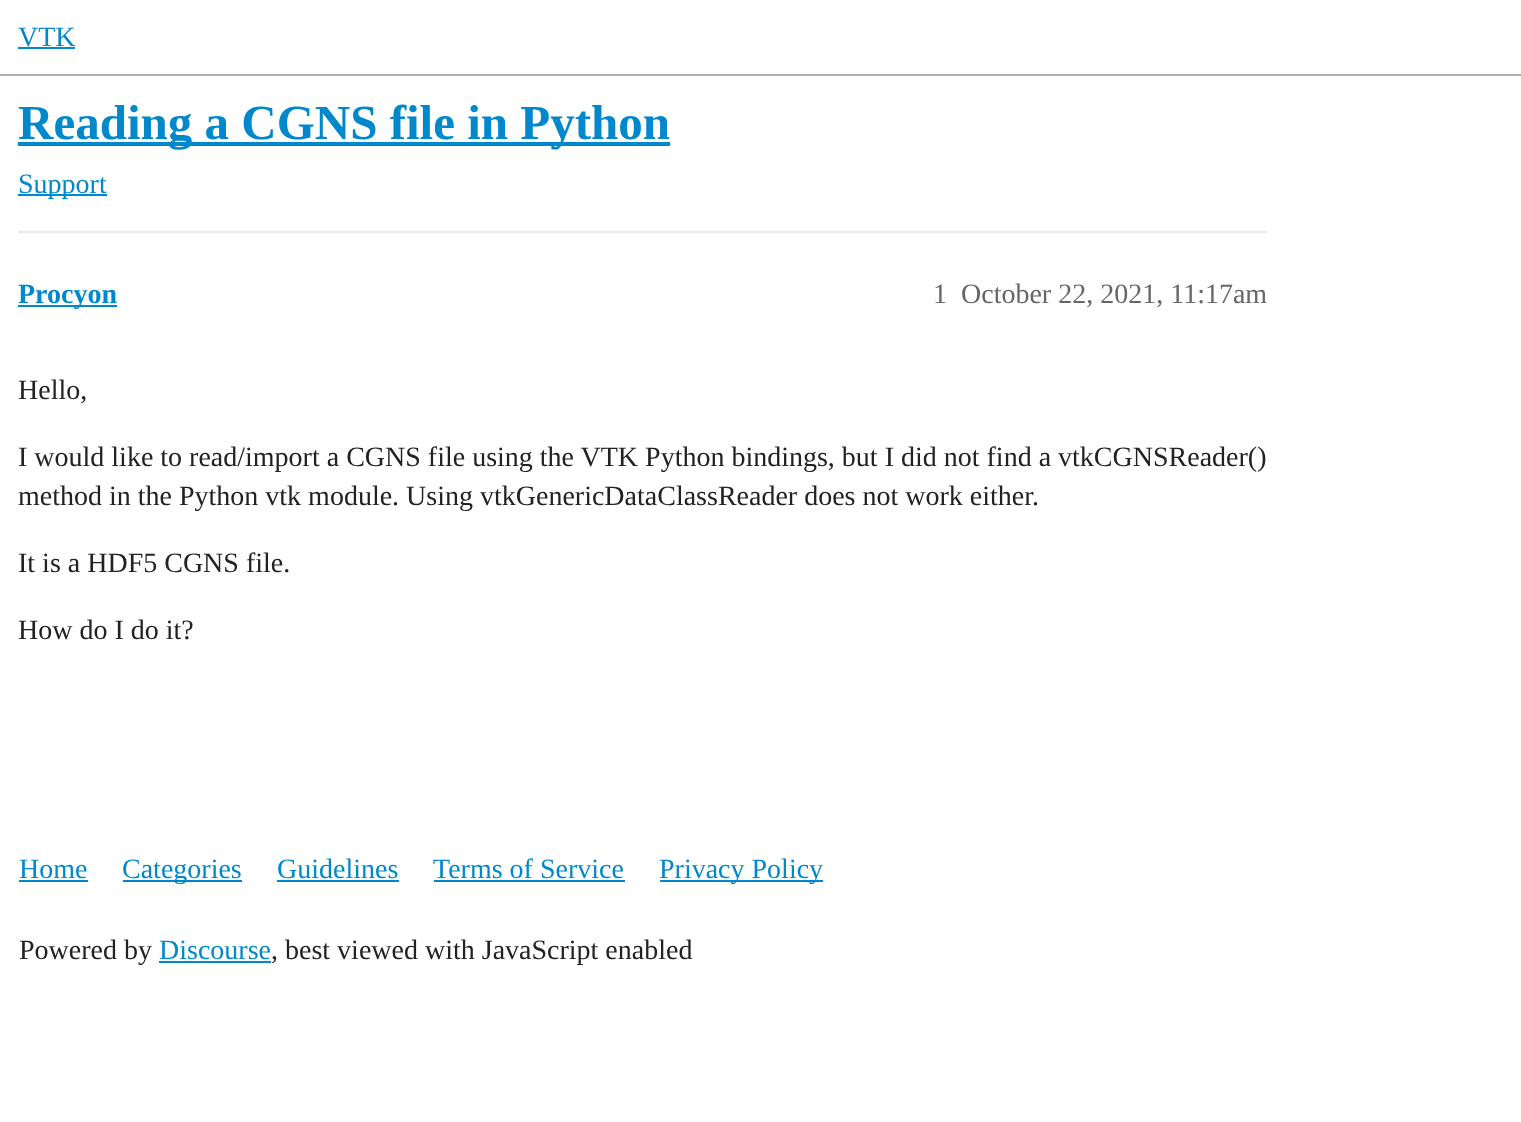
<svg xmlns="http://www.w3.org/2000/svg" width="1521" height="1122">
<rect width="100%" height="100%" fill="#fff"/>
<rect y="74" width="1521" height="2" fill="#afafaf"/>
<text x="18" y="46" style="font-family:Liberation Serif;font-size:28px;fill:#08c">VTK</text>
<rect x="18" y="47" width="57" height="2" fill="#08c"/>
<rect x="18" y="142" width="652" height="4" fill="#08c"/>
<text x="18" y="139" style="font-family:Liberation Serif;font-size:49px;font-weight:bold;fill:#08c">Reading a CGNS file in Python</text>
<rect x="18" y="194" width="89" height="2" fill="#08c"/>
<text x="18" y="193" style="font-family:Liberation Serif;font-size:28px;fill:#08c">Support</text>
<rect x="18" y="231" width="1249" height="2" fill="#e9e9e9"/>
<rect x="18" y="305" width="99" height="2" fill="#08c"/>
<text x="18" y="303" style="font-family:Liberation Serif;font-size:28px;font-weight:bold;fill:#08c">Procyon</text>
<text x="933" y="303" style="font-family:Liberation Serif;font-size:28px;fill:#666">1</text>
<text x="961" y="303" style="font-family:Liberation Serif;font-size:28px;fill:#666">October 22, 2021, 11:17am</text>
<text x="18" y="399" style="font-family:Liberation Serif;font-size:28px;fill:#222">Hello,</text>
<text x="18" y="466" style="font-family:Liberation Serif;font-size:28px;fill:#222">I would like to read/import a CGNS file using the VTK Python bindings, but I did not find a vtkCGNSReader()</text>
<text x="18" y="505" style="font-family:Liberation Serif;font-size:28px;fill:#222">method in the Python vtk module. Using vtkGenericDataClassReader does not work either.</text>
<text x="18" y="572" style="font-family:Liberation Serif;font-size:28px;fill:#222">It is a HDF5 CGNS file.</text>
<text x="18" y="639" style="font-family:Liberation Serif;font-size:28px;fill:#222">How do I do it?</text>
<text x="19" y="878" style="font-family:Liberation Serif;font-size:28px;fill:#08c">Home</text>
<rect x="19" y="880" width="69" height="2" fill="#08c"/>
<rect x="123" y="880" width="119" height="2" fill="#08c"/>
<text x="122" y="878" style="font-family:Liberation Serif;font-size:28px;fill:#08c">Categories</text>
<text x="277" y="878" style="font-family:Liberation Serif;font-size:28px;fill:#08c">Guidelines</text>
<rect x="277" y="880" width="122" height="2" fill="#08c"/>
<text x="433" y="878" style="font-family:Liberation Serif;font-size:28px;fill:#08c">Terms of Service</text>
<rect x="434" y="880" width="191" height="2" fill="#08c"/>
<rect x="660" y="880" width="163" height="2" fill="#08c"/>
<text x="659" y="878" style="font-family:Liberation Serif;font-size:28px;fill:#08c">Privacy Policy</text>
<text x="19" y="959" style="font-family:Liberation Serif;font-size:28px;fill:#222">Powered by</text>
<text x="159" y="959" style="font-family:Liberation Serif;font-size:28px;fill:#08c">Discourse</text>
<rect x="159" y="961" width="112" height="2" fill="#08c"/>
<text x="271" y="959" style="font-family:Liberation Serif;font-size:28px;fill:#222">, best viewed with JavaScript enabled</text>
</svg>
